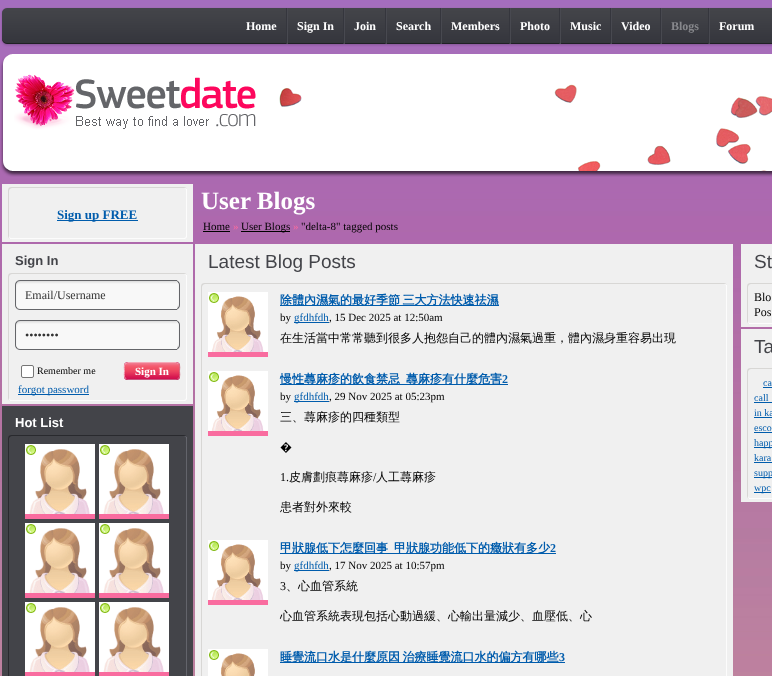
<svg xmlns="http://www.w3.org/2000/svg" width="772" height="676">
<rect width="100%" height="100%" fill="#fff"/>
<image x="0" y="0" width="772" height="676" href="media/1.png"/>
<image x="0" y="54" width="772" height="123" href="media/2.png"/>
<image x="0" y="7" width="772" height="40" href="media/3.png"/>
<rect x="286" y="8" width="1" height="36" fill="#35363d"/>
<text x="246" y="30" style="font-family:Liberation Serif;font-size:12px;font-weight:bold;fill:#fff">Home</text>
<rect x="343" y="8" width="1" height="36" fill="#35363d"/>
<rect x="287" y="8" width="1" height="36" fill="#484950"/>
<text x="297" y="30" style="font-family:Liberation Serif;font-size:12px;font-weight:bold;fill:#fff">Sign In</text>
<rect x="385" y="8" width="1" height="36" fill="#35363d"/>
<rect x="344" y="8" width="1" height="36" fill="#484950"/>
<text x="354" y="30" style="font-family:Liberation Serif;font-size:12px;font-weight:bold;fill:#fff">Join</text>
<rect x="440" y="8" width="1" height="36" fill="#35363d"/>
<rect x="386" y="8" width="1" height="36" fill="#484950"/>
<text x="396" y="30" style="font-family:Liberation Serif;font-size:12px;font-weight:bold;fill:#fff">Search</text>
<rect x="509" y="8" width="1" height="36" fill="#35363d"/>
<rect x="441" y="8" width="1" height="36" fill="#484950"/>
<text x="451" y="30" style="font-family:Liberation Serif;font-size:12px;font-weight:bold;fill:#fff">Members</text>
<rect x="559" y="8" width="1" height="36" fill="#35363d"/>
<rect x="510" y="8" width="1" height="36" fill="#484950"/>
<text x="520" y="30" style="font-family:Liberation Serif;font-size:12px;font-weight:bold;fill:#fff">Photo</text>
<rect x="610" y="8" width="1" height="36" fill="#35363d"/>
<rect x="560" y="8" width="1" height="36" fill="#484950"/>
<text x="570" y="30" style="font-family:Liberation Serif;font-size:12px;font-weight:bold;fill:#fff">Music</text>
<rect x="660" y="8" width="1" height="36" fill="#35363d"/>
<rect x="611" y="8" width="1" height="36" fill="#484950"/>
<text x="621" y="30" style="font-family:Liberation Serif;font-size:12px;font-weight:bold;fill:#fff">Video</text>
<rect x="708" y="8" width="1" height="36" fill="#35363d"/>
<rect x="661" y="8" width="1" height="36" fill="#484950"/>
<text x="671" y="30" style="font-family:Liberation Serif;font-size:12px;font-weight:bold;fill:#87888c">Blogs</text>
<rect x="709" y="8" width="1" height="36" fill="#484950"/>
<text x="719" y="30" style="font-family:Liberation Serif;font-size:12px;font-weight:bold;fill:#fff">Forum</text>
<image x="14" y="74" width="242" height="56" href="media/4.png"/>
<rect x="2" y="184" width="191" height="58" fill="#f0f0f0"/>
<image x="8" y="187" width="5" height="4" href="media/5.png"/>
<image x="182" y="187" width="5" height="4" href="media/6.png"/>
<rect x="13" y="187" width="169" height="1" fill="#d8d7d5"/>
<rect x="186" y="191" width="1" height="44" fill="#fcfcfc"/>
<rect x="8" y="191" width="1" height="44" fill="#d8d7d5"/>
<rect x="57" y="220" width="81" height="1" fill="#005cac"/>
<text x="57" y="219" style="font-family:Liberation Serif;font-size:13px;font-weight:bold;fill:#005cac">Sign up FREE</text>
<image x="8" y="235" width="5" height="4" href="media/7.png"/>
<image x="182" y="235" width="5" height="4" href="media/8.png"/>
<rect x="13" y="238" width="169" height="1" fill="#fcfcfc"/>
<rect x="2" y="244" width="191" height="160" fill="#f0f0f0"/>
<image x="8" y="273" width="5" height="4" href="media/5.png"/>
<image x="182" y="273" width="5" height="4" href="media/6.png"/>
<rect x="13" y="273" width="169" height="1" fill="#d8d7d5"/>
<text x="15" y="265" style="font-family:Liberation Sans;font-size:13px;font-weight:bold;fill:#434449">Sign In</text>
<rect x="186" y="277" width="1" height="120" fill="#fcfcfc"/>
<rect x="8" y="277" width="1" height="120" fill="#d8d7d5"/>
<image x="177" y="280" width="3" height="30" href="media/9.png"/>
<image x="15" y="280" width="162" height="30" href="media/10.png"/>
<text x="25" y="299" style="font-family:Liberation Serif;font-size:12px;fill:#333">Email/Username</text>
<image x="177" y="320" width="3" height="30" href="media/9.png"/>
<image x="15" y="320" width="162" height="30" href="media/10.png"/>
<text x="25" y="339" style="font-family:Liberation Serif;font-size:12px;fill:#333">••••••••</text>
<rect x="21.5" y="365.5" width="12" height="12" rx="1.5" fill="#fff" stroke="#767676"/>
<text x="37" y="374" style="font-family:Liberation Serif;font-size:10px;fill:#000">Remember me</text>
<rect x="124" y="362" width="56" height="18" rx="4" fill="#ca004a"/>
<image x="124" y="363" width="56" height="17" href="media/11.png"/>
<path d="M125.5 363.5l2-1h49l2 1" fill="none" stroke="#f5a8b7"/>
<path d="M178.5 363.5c2 2 1 5.5 1 7.5c0 2 1 5.5-1 7.5" fill="none" stroke="#d57186"/>
<path d="M178.5 378.5l-2 1h-49l-2-1" fill="none" stroke="#c6557e"/>
<path d="M125.5 378.5c-2-2-1-5.5-1-7.5c0-2-1-5.5 1-7.5" fill="none" stroke="#f2a2b6"/>
<text x="135" y="375" style="font-family:Liberation Serif;font-size:11px;font-weight:bold;fill:#fff">Sign In</text>
<rect x="18" y="394" width="71" height="1" fill="#005cac"/>
<text x="18" y="393" style="font-family:Liberation Serif;font-size:11px;fill:#005cac">forgot password</text>
<image x="8" y="397" width="5" height="4" href="media/7.png"/>
<image x="182" y="397" width="5" height="4" href="media/8.png"/>
<rect x="13" y="400" width="169" height="1" fill="#fcfcfc"/>
<rect x="2" y="406" width="191" height="270" fill="#434449"/>
<image x="8" y="435" width="5" height="4" href="media/12.png"/>
<image x="182" y="435" width="5" height="4" href="media/13.png"/>
<rect x="13" y="435" width="169" height="1" fill="#292a2e"/>
<text x="15" y="427" style="font-family:Liberation Sans;font-size:13px;font-weight:bold;fill:#fff">Hot List</text>
<rect x="186" y="439" width="1" height="237" fill="#63646b"/>
<rect x="8" y="439" width="1" height="237" fill="#292a2e"/>
<image x="25" y="444" width="70" height="70" href="media/14.png"/>
<image x="26" y="445" width="10" height="10" href="media/15.png"/>
<rect x="25" y="514" width="70" height="5" fill="#f96c9f"/>
<image x="99" y="444" width="70" height="70" href="media/14.png"/>
<image x="100" y="445" width="10" height="10" href="media/15.png"/>
<rect x="99" y="514" width="70" height="5" fill="#f96c9f"/>
<image x="25" y="523" width="70" height="70" href="media/14.png"/>
<image x="26" y="524" width="10" height="10" href="media/15.png"/>
<rect x="25" y="593" width="70" height="5" fill="#f96c9f"/>
<image x="99" y="523" width="70" height="70" href="media/14.png"/>
<image x="100" y="524" width="10" height="10" href="media/15.png"/>
<rect x="99" y="593" width="70" height="5" fill="#f96c9f"/>
<image x="25" y="602" width="70" height="70" href="media/14.png"/>
<image x="26" y="603" width="10" height="10" href="media/15.png"/>
<rect x="25" y="672" width="70" height="4" fill="#f96c9f"/>
<image x="99" y="602" width="70" height="70" href="media/14.png"/>
<image x="100" y="603" width="10" height="10" href="media/15.png"/>
<rect x="99" y="672" width="70" height="4" fill="#f96c9f"/>
<text x="201" y="209" style="font-family:Liberation Serif;font-size:25px;font-weight:bold;fill:#fff">User Blogs</text>
<text x="203" y="230" style="font-family:Liberation Serif;font-size:11px;fill:#000">Home</text>
<rect x="203" y="231" width="27" height="1" fill="#000"/>
<text x="233" y="230" style="font-family:Liberation Serif;font-size:11px;fill:#f96c9f">»</text>
<rect x="241" y="231" width="49" height="1" fill="#000"/>
<text x="241" y="230" style="font-family:Liberation Serif;font-size:11px;fill:#000">User Blogs</text>
<text x="293" y="230" style="font-family:Liberation Serif;font-size:11px;fill:#f96c9f">»</text>
<text x="301" y="230" style="font-family:Liberation Serif;font-size:11px;fill:#000">"delta-8" tagged posts</text>
<rect x="195" y="244" width="538" height="432" fill="#f0f0f0"/>
<image x="201" y="283" width="5" height="4" href="media/5.png"/>
<image x="722" y="283" width="5" height="4" href="media/6.png"/>
<rect x="206" y="283" width="516" height="1" fill="#d8d7d5"/>
<text x="208" y="268" style="font-family:Liberation Sans;font-size:19px;fill:#434449">Latest Blog Posts</text>
<rect x="726" y="287" width="1" height="389" fill="#fcfcfc"/>
<rect x="201" y="287" width="1" height="389" fill="#d8d7d5"/>
<image x="208" y="292" width="60" height="60" href="media/16.png"/>
<image x="209" y="293" width="10" height="10" href="media/15.png"/>
<rect x="208" y="352" width="60" height="5" fill="#f96c9f"/>
<rect x="280" y="305" width="219" height="1" fill="#005cac"/>
<text x="280" y="304" word-spacing="-1" style="font-family:WenQuanYi Zen Hei;font-size:12px;font-weight:bold;fill:#005cac">除體內濕氣的最好季節 三大方法快速祛濕</text>
<text x="280" y="321" style="font-family:Liberation Serif;font-size:11px;fill:#000">by</text>
<rect x="294" y="322" width="35" height="1" fill="#005cac"/>
<text x="294" y="321" style="font-family:Liberation Serif;font-size:11px;fill:#005cac">gfdhfdh</text>
<text x="329" y="321" style="font-family:Liberation Serif;font-size:11px;fill:#000">, 15 Dec 2025 at 12:50am</text>
<text x="280" y="342" style="font-family:WenQuanYi Zen Hei;font-size:12px;font-weight:500;fill:#000">在生活當中常常聽到很多人抱怨自己的體內濕氣過重，體內濕身重容易出現</text>
<image x="208" y="371" width="60" height="60" href="media/17.png"/>
<image x="209" y="372" width="10" height="10" href="media/15.png"/>
<rect x="208" y="431" width="60" height="5" fill="#f96c9f"/>
<rect x="280" y="384" width="228" height="1" fill="#005cac"/>
<text x="280" y="383" style="font-family:WenQuanYi Zen Hei;font-size:12px;font-weight:bold;fill:#005cac">慢性蕁麻疹的飲食禁忌</text>
<text x="406" y="383" style="font-family:WenQuanYi Zen Hei;font-size:12px;font-weight:bold;fill:#005cac">蕁麻疹有什麼危害</text>
<text x="502" y="383" style="font-family:Liberation Serif;font-size:12px;font-weight:bold;fill:#005cac">2</text>
<text x="280" y="400" style="font-family:Liberation Serif;font-size:11px;fill:#000">by</text>
<rect x="294" y="401" width="35" height="1" fill="#005cac"/>
<text x="294" y="400" style="font-family:Liberation Serif;font-size:11px;fill:#005cac">gfdhfdh</text>
<text x="329" y="400" style="font-family:Liberation Serif;font-size:11px;fill:#000">, 29 Nov 2025 at 05:23pm</text>
<text x="280" y="421" style="font-family:WenQuanYi Zen Hei;font-size:12px;font-weight:500;fill:#000">三、蕁麻疹的四種類型</text>
<text x="280" y="451" style="font-family:Noto Sans;font-size:12px;fill:#000">�</text>
<text x="280" y="481" style="font-family:Liberation Serif;font-size:12px;fill:#000">1.</text>
<text x="289" y="481" style="font-family:WenQuanYi Zen Hei;font-size:12px;font-weight:500;fill:#000">皮膚劃痕蕁麻疹</text>
<text x="373" y="481" style="font-family:Liberation Serif;font-size:12px;fill:#000">/</text>
<text x="376" y="481" style="font-family:WenQuanYi Zen Hei;font-size:12px;font-weight:500;fill:#000">人工蕁麻疹</text>
<text x="280" y="511" style="font-family:WenQuanYi Zen Hei;font-size:12px;font-weight:500;fill:#000">患者對外來較</text>
<image x="208" y="540" width="60" height="60" href="media/18.png"/>
<image x="209" y="541" width="10" height="10" href="media/15.png"/>
<rect x="208" y="600" width="60" height="5" fill="#f96c9f"/>
<rect x="280" y="553" width="276" height="1" fill="#005cac"/>
<text x="280" y="552" style="font-family:WenQuanYi Zen Hei;font-size:12px;font-weight:bold;fill:#005cac">甲狀腺低下怎麼回事</text>
<text x="394" y="552" style="font-family:WenQuanYi Zen Hei;font-size:12px;font-weight:bold;fill:#005cac">甲狀腺功能低下的癥狀有多少</text>
<text x="550" y="552" style="font-family:Liberation Serif;font-size:12px;font-weight:bold;fill:#005cac">2</text>
<text x="280" y="569" style="font-family:Liberation Serif;font-size:11px;fill:#000">by</text>
<rect x="294" y="570" width="35" height="1" fill="#005cac"/>
<text x="294" y="569" style="font-family:Liberation Serif;font-size:11px;fill:#005cac">gfdhfdh</text>
<text x="329" y="569" style="font-family:Liberation Serif;font-size:11px;fill:#000">, 17 Nov 2025 at 10:57pm</text>
<text x="280" y="590" style="font-family:Liberation Serif;font-size:12px;fill:#000">3</text>
<text x="286" y="590" style="font-family:WenQuanYi Zen Hei;font-size:12px;font-weight:500;fill:#000">、心血管系統</text>
<text x="280" y="620" style="font-family:WenQuanYi Zen Hei;font-size:12px;font-weight:500;fill:#000">心血管系統表現包括心動過緩、心輸出量減少、血壓低、心</text>
<image x="208" y="649" width="60" height="27" href="media/19.png"/>
<image x="209" y="650" width="10" height="10" href="media/15.png"/>
<rect x="280" y="662" width="285" height="1" fill="#005cac"/>
<text x="280" y="661" word-spacing="-1" style="font-family:WenQuanYi Zen Hei;font-size:12px;font-weight:bold;fill:#005cac">睡覺流口水是什麼原因 治療睡覺流口水的偏方有哪些</text>
<text x="559" y="661" style="font-family:Liberation Serif;font-size:12px;font-weight:bold;fill:#005cac">3</text>
<rect x="741" y="244" width="31" height="83" fill="#f0f0f0"/>
<image x="747" y="283" width="5" height="4" href="media/5.png"/>
<rect x="752" y="283" width="20" height="1" fill="#d8d7d5"/>
<text x="754" y="268" style="font-family:Liberation Sans;font-size:19px;fill:#434449">St</text>
<rect x="747" y="287" width="1" height="33" fill="#d8d7d5"/>
<text x="754" y="301" style="font-family:Liberation Serif;font-size:12px;fill:#000">Blo</text>
<text x="754" y="316" style="font-family:Liberation Serif;font-size:12px;fill:#000">Pos</text>
<image x="747" y="320" width="5" height="4" href="media/7.png"/>
<rect x="752" y="323" width="20" height="1" fill="#fcfcfc"/>
<rect x="741" y="329" width="31" height="173" fill="#f0f0f0"/>
<image x="747" y="368" width="5" height="4" href="media/5.png"/>
<rect x="752" y="368" width="20" height="1" fill="#d8d7d5"/>
<text x="754" y="353" style="font-family:Liberation Sans;font-size:19px;fill:#434449">Ta</text>
<rect x="747" y="372" width="1" height="123" fill="#d8d7d5"/>
<text x="763" y="386" style="font-family:Liberation Serif;font-size:10px;fill:#005cac">ca</text>
<rect x="763" y="387" width="9" height="1" fill="#005cac"/>
<text x="754" y="401" style="font-family:Liberation Serif;font-size:10px;fill:#005cac">call</text>
<rect x="754" y="402" width="18" height="1" fill="#005cac"/>
<text x="754" y="416" style="font-family:Liberation Serif;font-size:10px;fill:#005cac">in ka</text>
<rect x="754" y="417" width="18" height="1" fill="#005cac"/>
<text x="754" y="431" style="font-family:Liberation Serif;font-size:10px;fill:#005cac">esco</text>
<rect x="754" y="432" width="18" height="1" fill="#005cac"/>
<rect x="754" y="447" width="18" height="1" fill="#005cac"/>
<text x="754" y="446" style="font-family:Liberation Serif;font-size:10px;fill:#005cac">happ</text>
<text x="754" y="461" style="font-family:Liberation Serif;font-size:10px;fill:#005cac">kara</text>
<rect x="754" y="462" width="18" height="1" fill="#005cac"/>
<rect x="754" y="477" width="18" height="1" fill="#005cac"/>
<text x="754" y="476" style="font-family:Liberation Serif;font-size:10px;fill:#005cac">supp</text>
<rect x="754" y="492" width="17" height="1" fill="#005cac"/>
<text x="754" y="491" style="font-family:Liberation Serif;font-size:10px;fill:#005cac">wpc</text>
<image x="747" y="495" width="5" height="4" href="media/7.png"/>
<rect x="752" y="498" width="20" height="1" fill="#fcfcfc"/>
</svg>
